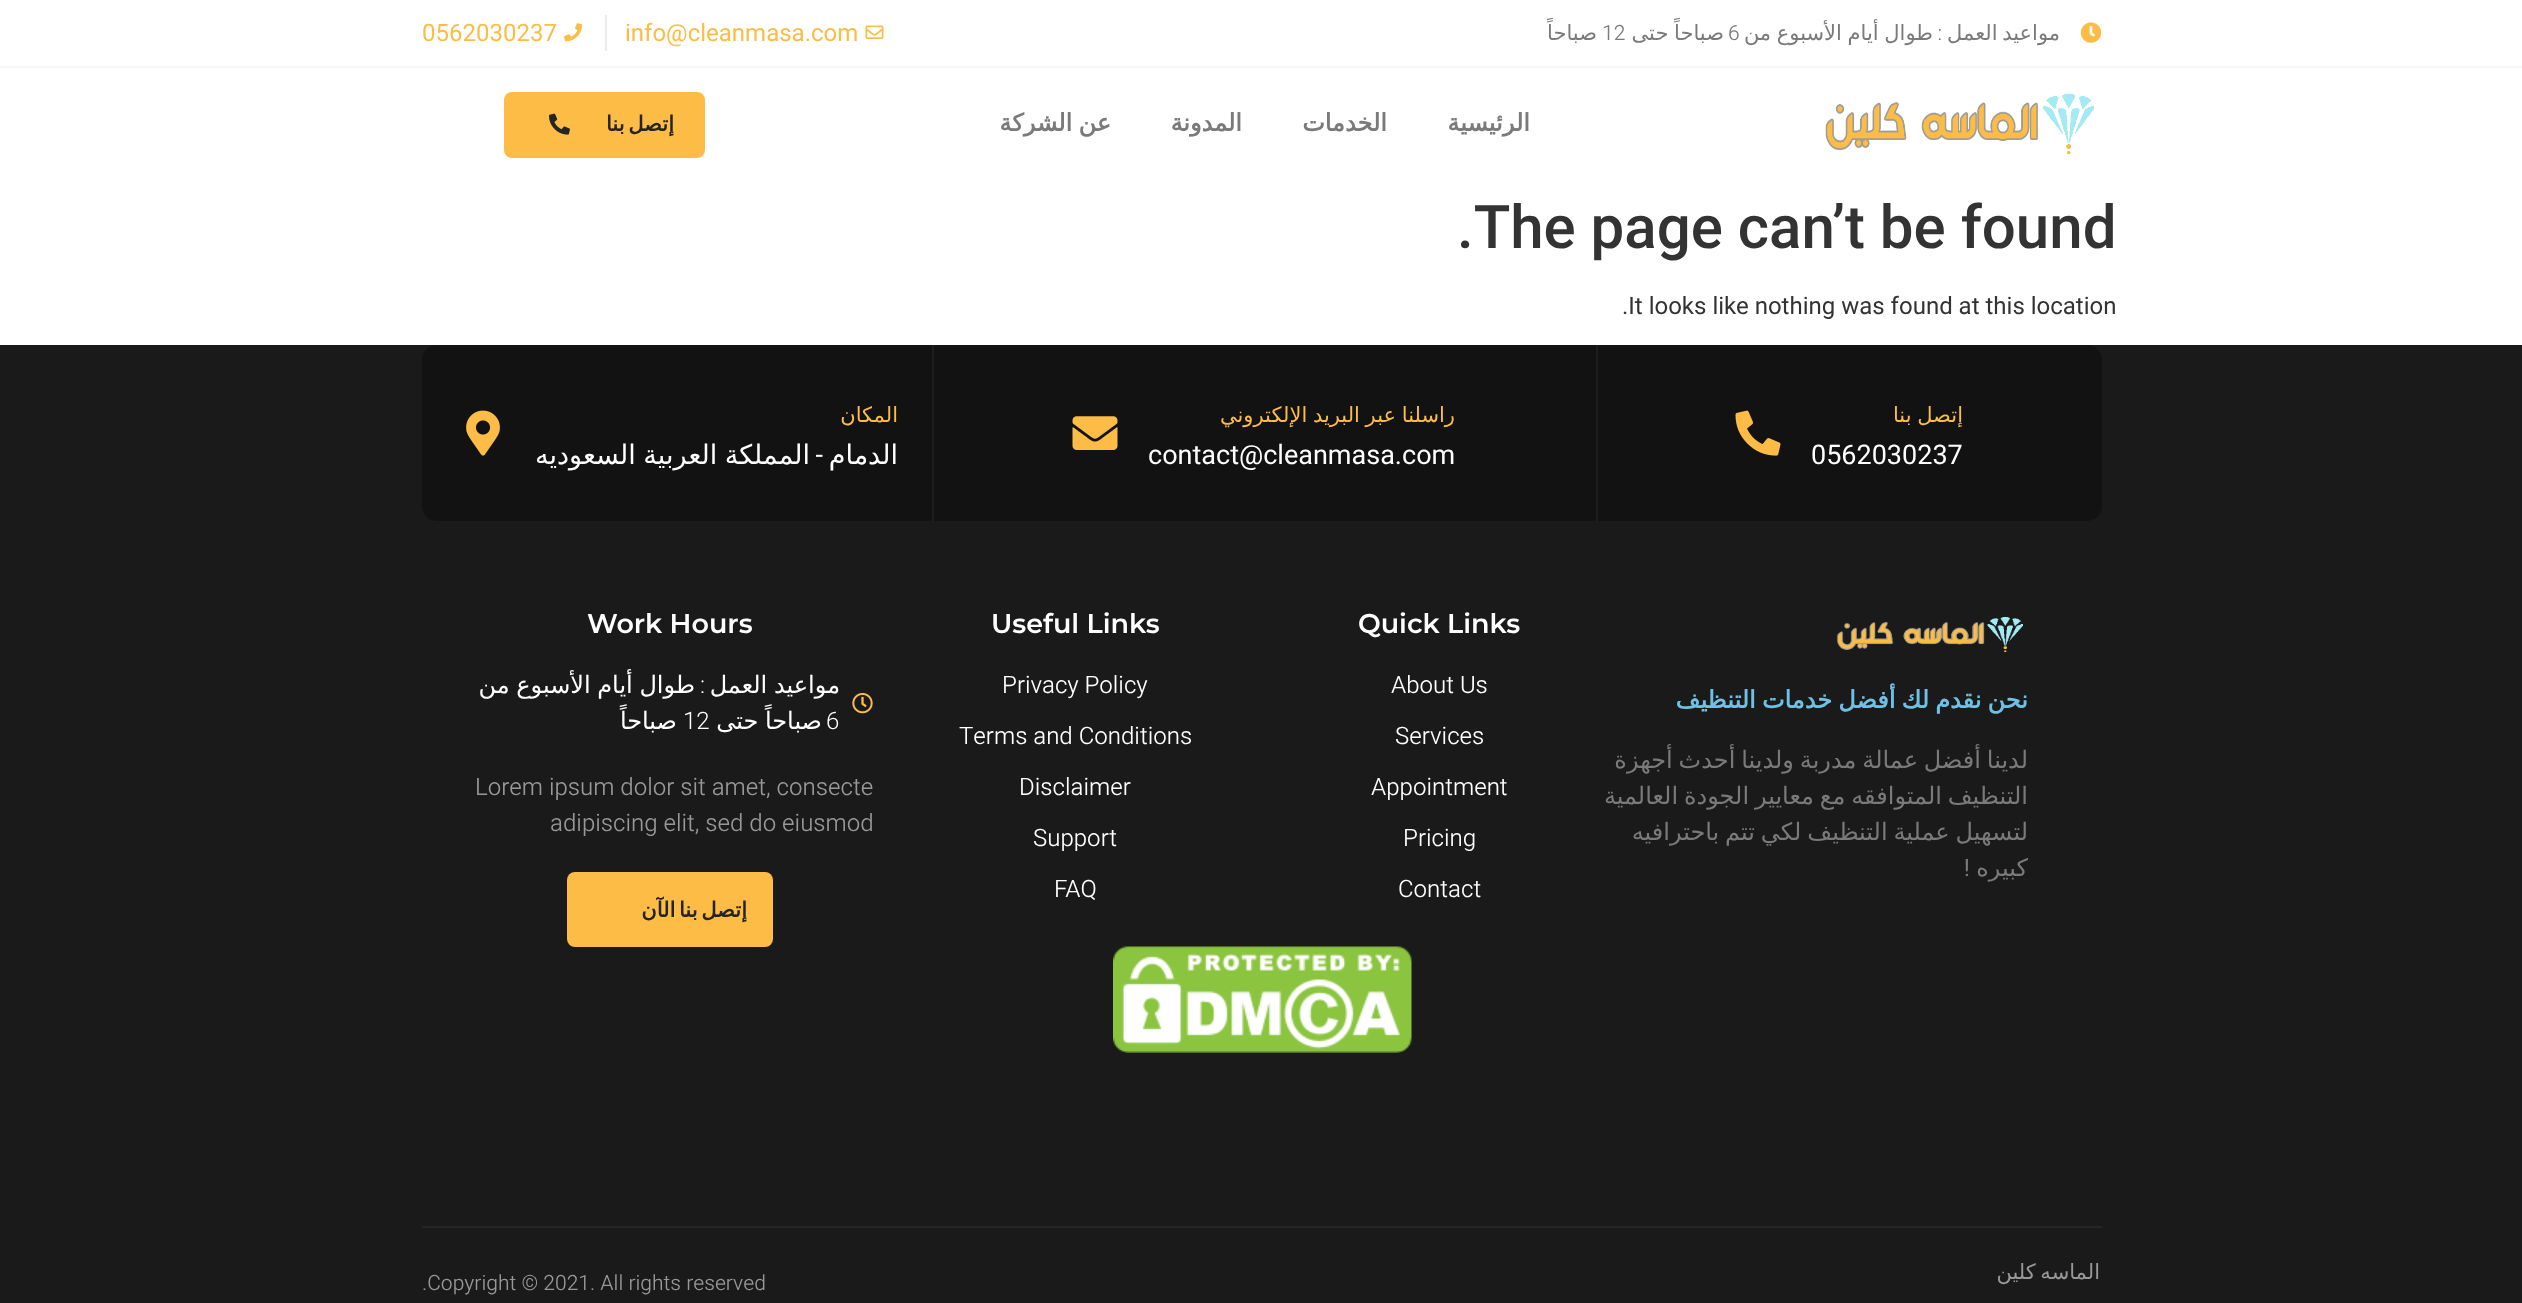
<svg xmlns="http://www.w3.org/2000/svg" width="2522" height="1303">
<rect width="100%" height="100%" fill="#fff"/>
<rect y="66" width="2522" height="2" fill="#f6f6f6"/>
<image x="2080" y="22" width="22" height="21" href="media/1.png"/>
<text x="2060" y="40" word-spacing="-2" style="font-family:DejaVu Sans;font-size:21px;direction:rtl;fill:#7a7a7a">مواعيد العمل</text>
<text x="1942" y="40" style="font-family:Heebo;font-size:21px;font-weight:300;direction:rtl;fill:#7a7a7a">:</text>
<text x="1933" y="40" word-spacing="-1" style="font-family:DejaVu Sans;font-size:21px;direction:rtl;fill:#7a7a7a">طوال أيام الأسبوع من</text>
<text x="1728" y="40" style="font-family:Heebo;font-size:21px;font-weight:300;fill:#7a7a7a">6</text>
<text x="1724" y="40" word-spacing="-1" style="font-family:DejaVu Sans;font-size:21px;direction:rtl;fill:#7a7a7a">صباحاً حتى</text>
<text x="1602" y="40" style="font-family:Heebo;font-size:21px;font-weight:300;fill:#7a7a7a">12</text>
<text x="1597" y="40" style="font-family:DejaVu Sans;font-size:21px;direction:rtl;fill:#7a7a7a">صباحاً</text>
<image x="865" y="25" width="19" height="14" href="media/2.png"/>
<text x="625" y="41" style="font-family:Roboto;font-size:24px;fill:#fcbc45">info@cleanmasa.com</text>
<rect x="605" y="15" width="2" height="36" fill="#ececec"/>
<image x="564" y="23" width="18" height="19" href="media/3.png"/>
<text x="422" y="41" style="font-family:Roboto;font-size:24px;fill:#fcbc45">0562030237</text>
<image x="1825" y="93" width="269" height="61" href="media/4.png"/>
<text x="1530" y="131" style="font-family:DejaVu Sans;font-size:24px;font-weight:bold;direction:rtl;fill:#7a7a7a">الرئيسية</text>
<text x="1387" y="131" style="font-family:DejaVu Sans;font-size:24px;font-weight:bold;direction:rtl;fill:#7a7a7a">الخدمات</text>
<text x="1242" y="131" style="font-family:DejaVu Sans;font-size:24px;font-weight:bold;direction:rtl;fill:#7a7a7a">المدونة</text>
<text x="1111" y="131" word-spacing="-1.5" style="font-family:DejaVu Sans;font-size:24px;font-weight:bold;direction:rtl;fill:#7a7a7a">عن الشركة</text>
<rect x="504" y="92" width="201" height="66" rx="8" fill="#fcbc45"/>
<text x="674" y="131" word-spacing="-3" style="font-family:DejaVu Sans;font-size:21px;font-weight:bold;letter-spacing:2px;direction:rtl;fill:#252425">إتصل بنا</text>
<image x="549" y="113" width="21" height="22" href="media/5.png"/>
<text x="1457" y="248" style="font-family:Roboto;font-size:60px;font-weight:500;fill:#333">.The page can’t be found</text>
<text x="1622" y="314" style="font-family:Roboto;font-size:24px;fill:#333">.It looks like nothing was found at this location</text>
<rect y="345" width="2522" height="958" fill="#1a1a1a"/>
<rect x="422" y="345" width="1680" height="176" rx="15" fill="#121212"/>
<text x="1963" y="422" word-spacing="-1" style="font-family:DejaVu Sans;font-size:21px;direction:rtl;fill:#fcbc45">إتصل بنا</text>
<text x="1811" y="464" style="font-family:Heebo;font-size:27px;fill:#fff">0562030237</text>
<image x="1735" y="410" width="46" height="46" href="media/6.png"/>
<rect x="1596" y="345" width="2" height="176" fill="#1d1d1d"/>
<rect x="932" y="345" width="2" height="176" fill="#1d1d1d"/>
<text x="1455" y="422" word-spacing="-1" style="font-family:DejaVu Sans;font-size:21px;direction:rtl;fill:#fcbc45">راسلنا عبر البريد الإلكتروني</text>
<text x="1148" y="464" style="font-family:Heebo;font-size:27px;fill:#fff">contact@cleanmasa.com</text>
<image x="1072" y="416" width="46" height="34" href="media/7.png"/>
<text x="898" y="422" style="font-family:DejaVu Sans;font-size:21px;direction:rtl;fill:#fcbc45">المكان</text>
<text x="898" y="464" style="font-family:DejaVu Sans;font-size:27px;direction:rtl;fill:#fff">الدمام</text>
<text x="823" y="464" style="font-family:Heebo;font-size:27px;direction:rtl;fill:#fff">-</text>
<text x="810" y="464" word-spacing="-1" style="font-family:DejaVu Sans;font-size:27px;direction:rtl;fill:#fff">المملكة العربية السعوديه</text>
<image x="466" y="410" width="34" height="46" href="media/8.png"/>
<image x="1836" y="617" width="187" height="35" href="media/9.png"/>
<text x="2028" y="708" word-spacing="-1.5" style="font-family:DejaVu Sans;font-size:24px;font-weight:bold;direction:rtl;fill:#6ec1e4">نحن نقدم لك أفضل خدمات التنظيف</text>
<text x="2028" y="768" word-spacing="-1.75" style="font-family:DejaVu Sans;font-size:24px;direction:rtl;fill:#7a7a7a">لدينا أفضل عمالة مدربة ولدينا أحدث أجهزة</text>
<text x="2028" y="804" word-spacing="-1.75" style="font-family:DejaVu Sans;font-size:24px;direction:rtl;fill:#7a7a7a">التنظيف المتوافقه مع معايير الجودة العالمية</text>
<text x="2028" y="840" word-spacing="-1.75" style="font-family:DejaVu Sans;font-size:24px;direction:rtl;fill:#7a7a7a">لتسهيل عملية التنظيف لكي تتم باحترافيه</text>
<text x="2028" y="876" style="font-family:DejaVu Sans;font-size:24px;direction:rtl;fill:#7a7a7a">كبيره</text>
<text x="1970" y="876" style="font-family:Roboto;font-size:24px;direction:rtl;fill:#7a7a7a">!</text>
<text x="1358" y="633" style="font-family:Montserrat;font-size:27px;font-weight:600;fill:#fff">Quick Links</text>
<text x="1391" y="693" style="font-family:Heebo;font-size:24px;font-weight:300;fill:#fff">About Us</text>
<text x="1395" y="744" style="font-family:Heebo;font-size:24px;font-weight:300;fill:#fff">Services</text>
<text x="1371" y="795" style="font-family:Heebo;font-size:24px;font-weight:300;fill:#fff">Appointment</text>
<text x="1403" y="846" style="font-family:Heebo;font-size:24px;font-weight:300;fill:#fff">Pricing</text>
<text x="1398" y="897" style="font-family:Heebo;font-size:24px;font-weight:300;fill:#fff">Contact</text>
<text x="991" y="633" style="font-family:Montserrat;font-size:27px;font-weight:600;fill:#fff">Useful Links</text>
<text x="1002" y="693" style="font-family:Heebo;font-size:24px;font-weight:300;fill:#fff">Privacy Policy</text>
<text x="959" y="744" style="font-family:Heebo;font-size:24px;font-weight:300;fill:#fff">Terms and Conditions</text>
<text x="1019" y="795" style="font-family:Heebo;font-size:24px;font-weight:300;fill:#fff">Disclaimer</text>
<text x="1033" y="846" style="font-family:Heebo;font-size:24px;font-weight:300;fill:#fff">Support</text>
<text x="1054" y="897" style="font-family:Heebo;font-size:24px;font-weight:300;fill:#fff">FAQ</text>
<text x="587" y="633" style="font-family:Montserrat;font-size:27px;font-weight:600;fill:#fff">Work Hours</text>
<image x="852" y="693" width="21" height="21" href="media/10.png"/>
<text x="840" y="693" word-spacing="-1" style="font-family:DejaVu Sans;font-size:24px;direction:rtl;fill:#fff">مواعيد العمل</text>
<text x="705" y="693" style="font-family:Roboto;font-size:24px;font-weight:300;direction:rtl;fill:#fff">:</text>
<text x="695" y="693" word-spacing="-1" style="font-family:DejaVu Sans;font-size:24px;direction:rtl;fill:#fff">طوال أيام الأسبوع من</text>
<text x="826" y="729" style="font-family:Roboto;font-size:24px;font-weight:300;fill:#fff">6</text>
<text x="822" y="729" word-spacing="-1" style="font-family:DejaVu Sans;font-size:24px;direction:rtl;fill:#fff">صباحاً حتى</text>
<text x="683" y="729" style="font-family:Roboto;font-size:24px;font-weight:300;fill:#fff">12</text>
<text x="677" y="729" style="font-family:DejaVu Sans;font-size:24px;direction:rtl;fill:#fff">صباحاً</text>
<text x="475" y="795" style="font-family:Heebo;font-size:24px;font-weight:300;fill:#989898">Lorem ipsum dolor sit amet, consecte</text>
<text x="550" y="831" style="font-family:Heebo;font-size:24px;font-weight:300;fill:#989898">adipiscing elit, sed do eiusmod</text>
<rect x="567" y="872" width="206" height="75" rx="8" fill="#fcbc45"/>
<text x="747" y="917" word-spacing="-3" style="font-family:DejaVu Sans;font-size:21px;font-weight:bold;letter-spacing:2px;direction:rtl;fill:#252425">إتصل بنا الآن</text>
<image x="1113" y="946" width="299" height="107" href="media/11.png"/>
<rect x="422" y="1226" width="1680" height="2" fill="#252525"/>
<text x="2100" y="1279" word-spacing="-2" style="font-family:DejaVu Sans;font-size:21px;direction:rtl;fill:#989898">الماسه كلين</text>
<text x="422" y="1290" style="font-family:Heebo;font-size:21px;font-weight:300;fill:#989898">.Copyright © 2021. All rights reserved</text>
</svg>
